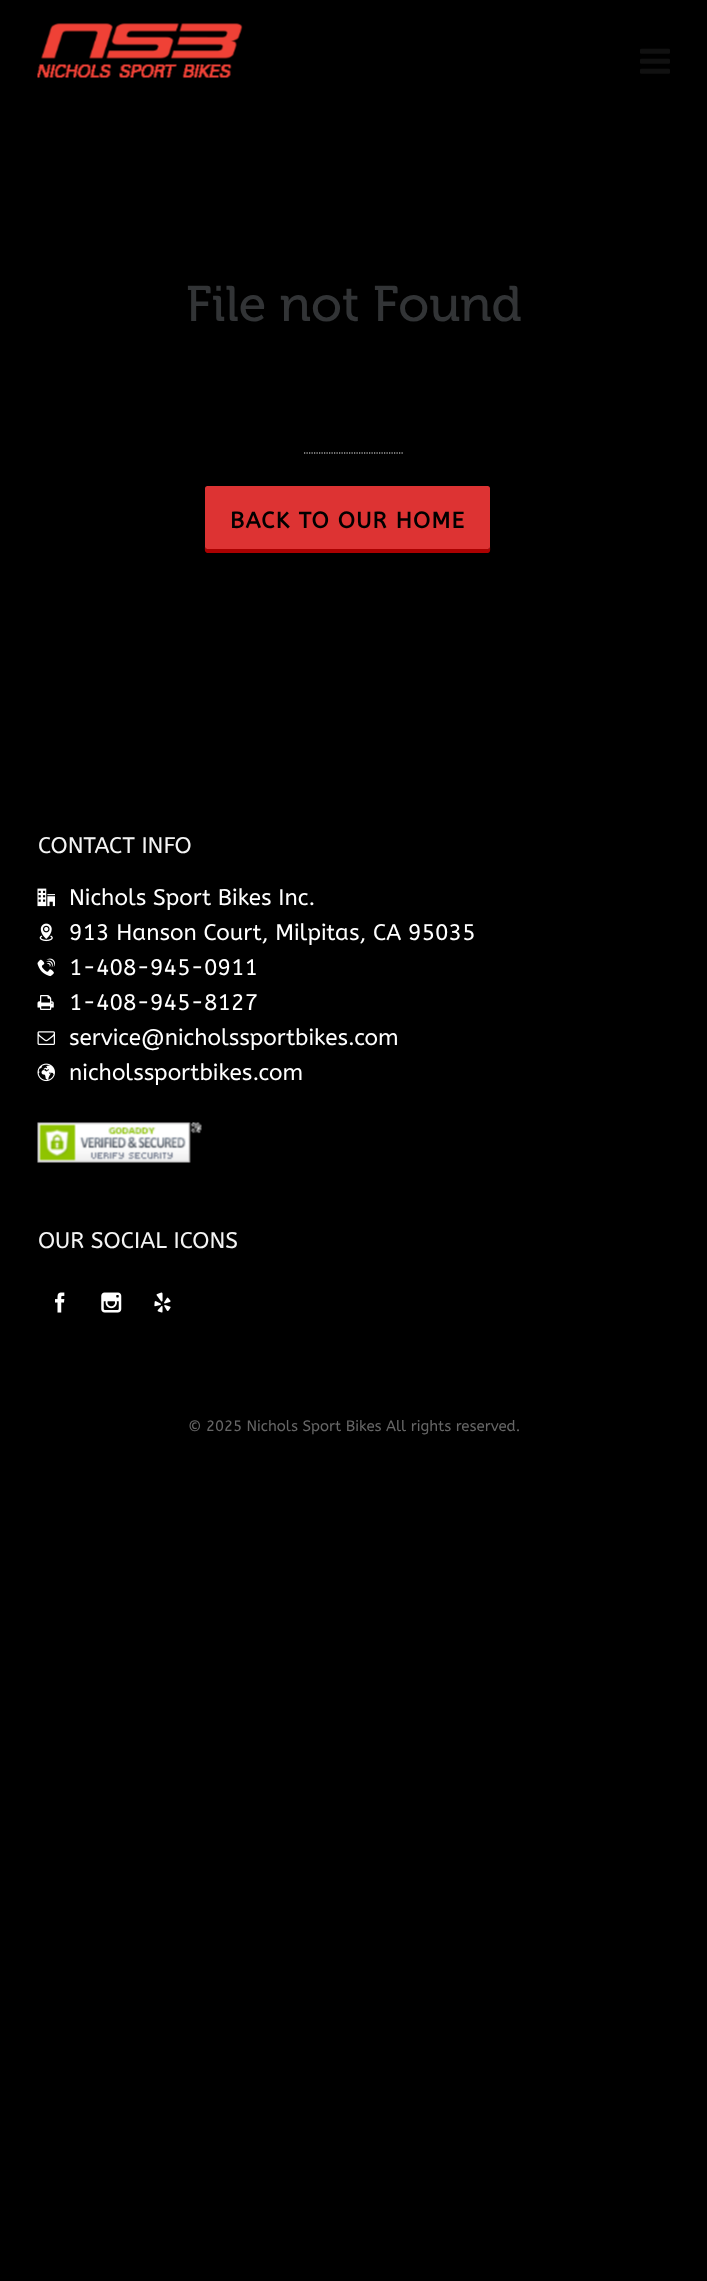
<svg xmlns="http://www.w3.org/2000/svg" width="707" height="2281">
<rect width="100%" height="100%" fill="#000"/>
<image x="37" y="23" width="206" height="55" href="media/1.png"/>
<image x="640" y="48" width="30" height="26" href="media/2.png"/>
<text x="186" y="321" style="font-family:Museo;font-size:50px;fill:#323436">File not Found</text>
<path d="M304 453h100" fill="none" stroke="#ebebeb" stroke-width="1.2" stroke-dasharray="1.25 1.25"/>
<path d="M205 546c0 2-1 6 2 7h281c3 0 2-5 2-7c0 2-1 3-2 3h-280c-2 0-3-1-3-3z" fill="#ab0101"/>
<rect x="205" y="486" width="285" height="63" rx="2.5" fill="#d33"/>
<text x="230" y="528" style="font-family:ABeeZee;font-size:22.5px;font-weight:bold;letter-spacing:1.25px;fill:#000">BACK TO OUR HOME</text>
<text x="38" y="853" style="font-family:ABeeZee;font-size:22.5px;fill:#f4f4f4">CONTACT INFO</text>
<image x="37" y="888" width="18" height="19" href="media/3.png"/>
<text x="69" y="905" style="font-family:ABeeZee;font-size:22.5px;fill:#fff">Nichols Sport Bikes Inc.</text>
<image x="39" y="923" width="14" height="19" href="media/4.png"/>
<text x="69" y="940" style="font-family:ABeeZee;font-size:22.5px;fill:#fff">913 Hanson Court, Milpitas, CA 95035</text>
<image x="37" y="958" width="18" height="19" href="media/5.png"/>
<text x="69" y="975" style="font-family:ABeeZee;font-size:22.5px;fill:#fff">1-408-945-0911</text>
<image x="37" y="995" width="17" height="15" href="media/6.png"/>
<text x="69" y="1010" style="font-family:ABeeZee;font-size:22.5px;fill:#fff">1-408-945-8127</text>
<image x="37" y="1031" width="18" height="14" href="media/7.png"/>
<text x="69" y="1045" style="font-family:ABeeZee;font-size:22.5px;fill:#fff">service@nicholssportbikes.com</text>
<image x="37" y="1063" width="18" height="19" href="media/8.png"/>
<text x="69" y="1080" style="font-family:ABeeZee;font-size:22.5px;fill:#fff">nicholssportbikes.com</text>
<image x="37" y="1122" width="165" height="41" href="media/9.png"/>
<text x="38" y="1248" style="font-family:ABeeZee;font-size:22.5px;fill:#f4f4f4">OUR SOCIAL ICONS</text>
<image x="55" y="1292" width="10" height="21" href="media/10.png"/>
<image x="101" y="1292" width="21" height="21" href="media/11.png"/>
<image x="154" y="1292" width="17" height="21" href="media/12.png"/>
<text x="188" y="1431" style="font-family:ABeeZee;font-size:15px;fill:#666">© 2025 Nichols Sport Bikes All rights reserved.</text>
</svg>
